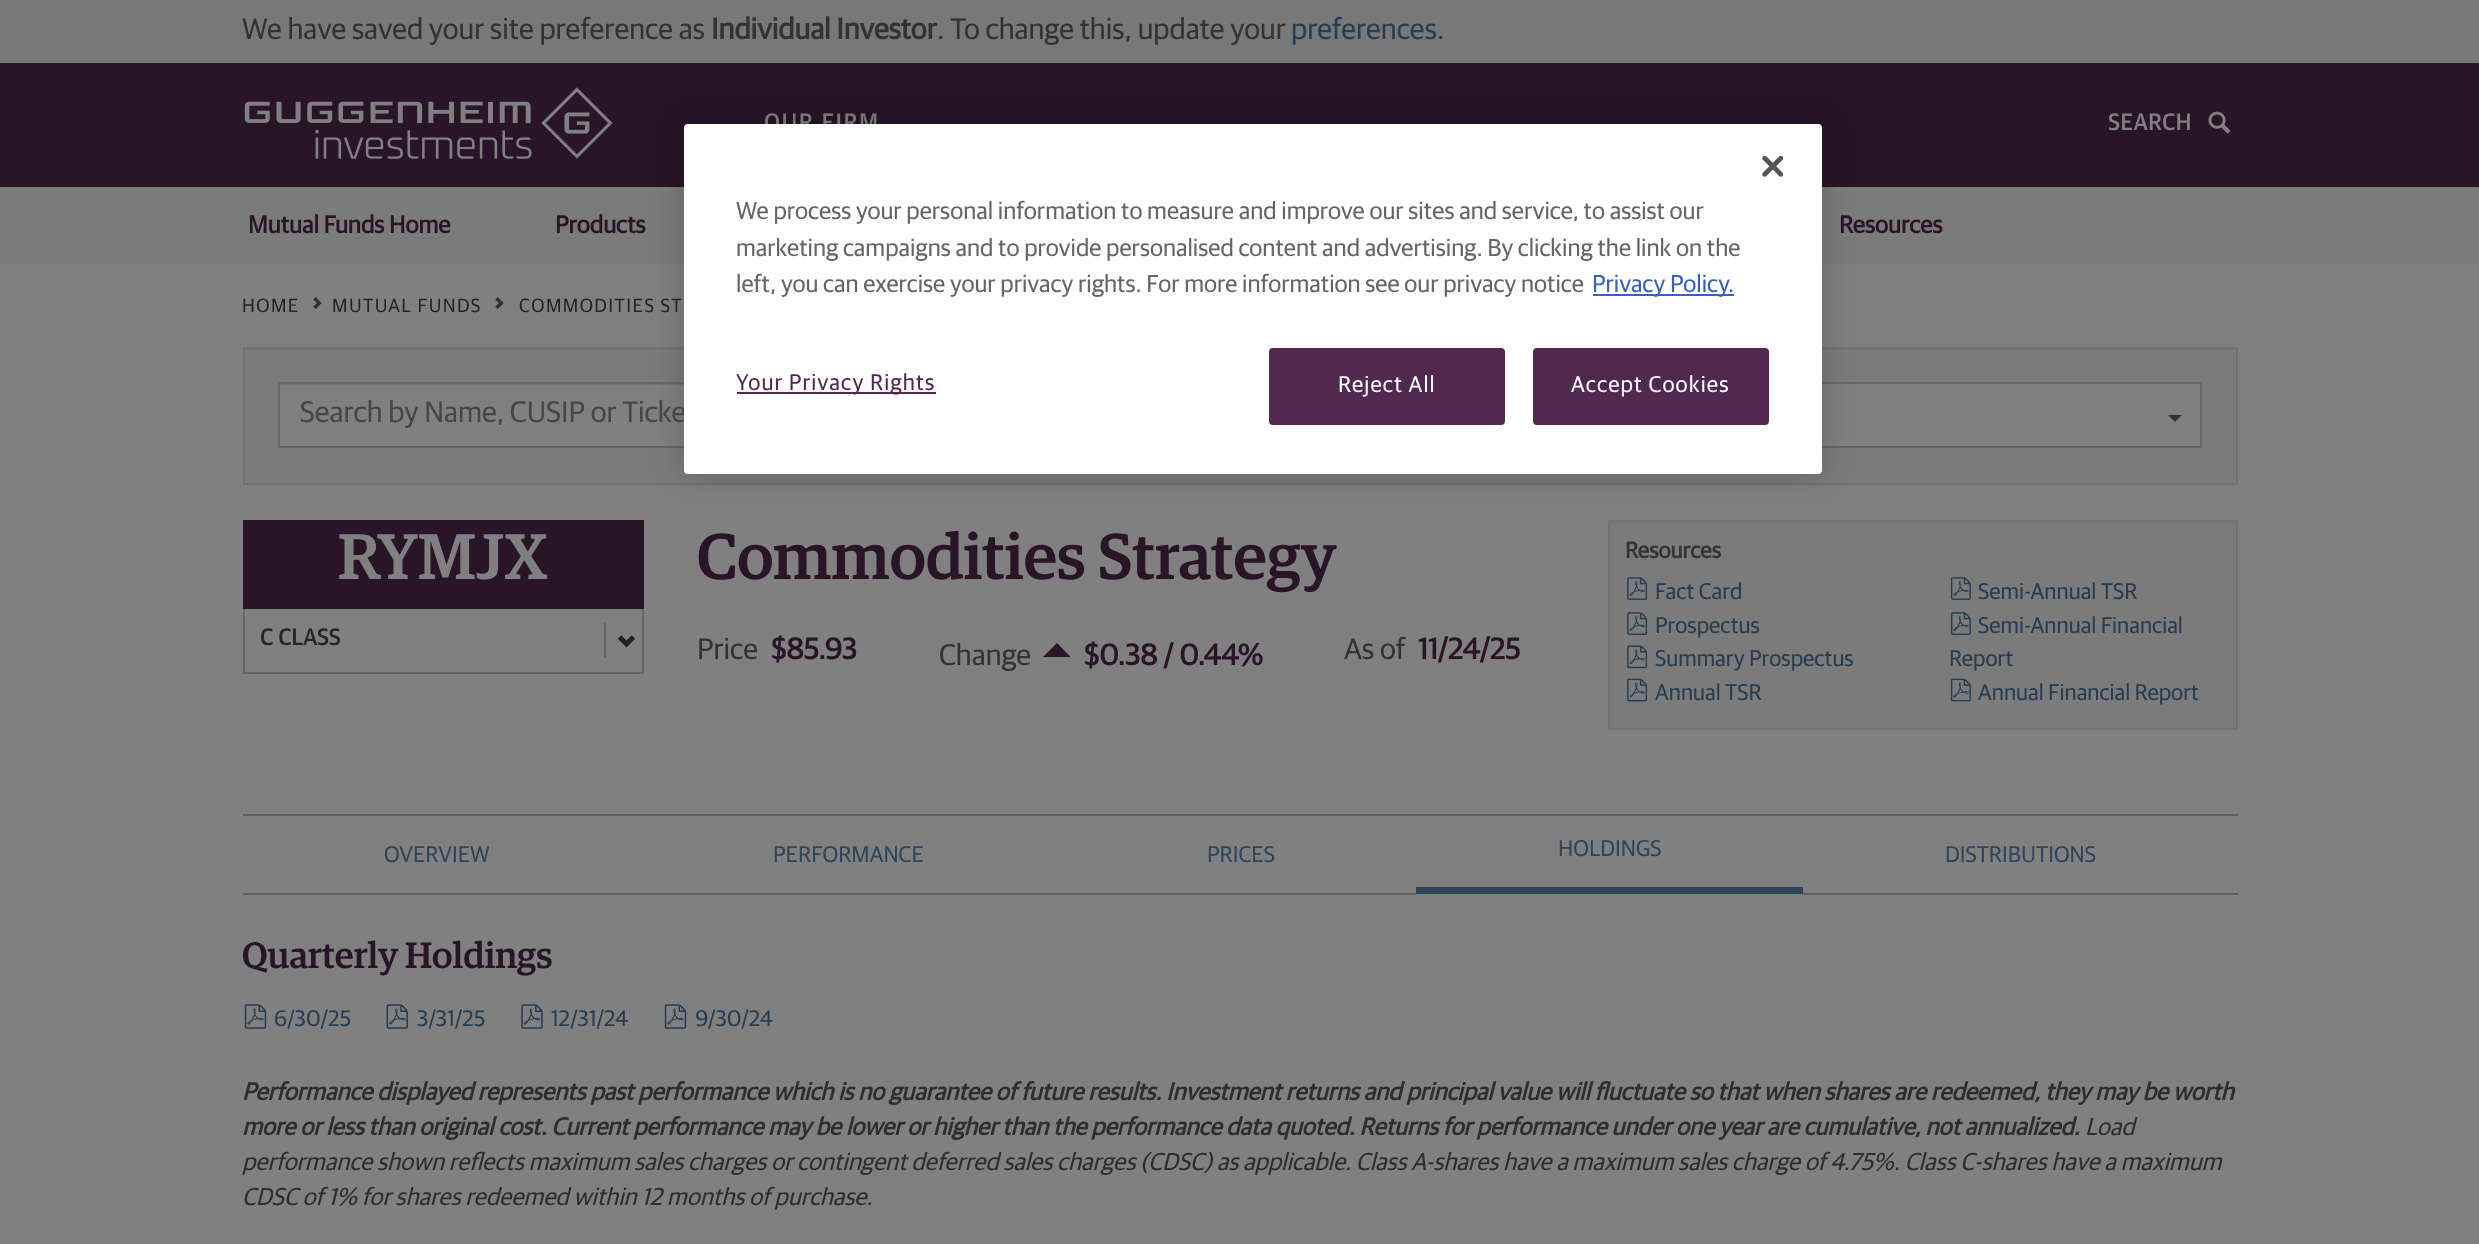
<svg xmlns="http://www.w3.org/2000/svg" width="2479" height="1244">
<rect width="100%" height="100%" fill="#808080"/>
<rect width="2479" height="63" fill="#787878"/>
<text x="242" y="39" style="font-family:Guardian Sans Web;font-size:29.75px;fill:#333335">We have saved your site preference as</text>
<text x="711" y="39" style="font-family:Guardian Sans Web;font-size:29.75px;font-weight:bold;fill:#333335">Individual Investor</text>
<text x="937" y="39" style="font-family:Guardian Sans Web;font-size:29.75px;fill:#333335">. To change this, update your</text>
<text x="1291" y="39" style="font-family:Guardian Sans Web;font-size:29.75px;fill:#273d52">preferences</text>
<text x="1437" y="39" style="font-family:Guardian Sans Web;font-size:29.75px;fill:#333335">.</text>
<rect y="63" width="2479" height="124" fill="#291428"/>
<image x="244" y="87" width="369" height="72" href="media/1.png"/>
<text x="764" y="130" style="font-family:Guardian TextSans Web;font-size:22.75px;font-weight:500;letter-spacing:1.5px;fill:#808080">OUR FIRM</text>
<text x="2108" y="130" style="font-family:Guardian TextSans Web;font-size:22.75px;font-weight:500;fill:#808080">SEARCH</text>
<image x="2208" y="111" width="23" height="23" href="media/2.png"/>
<rect y="187" width="2479" height="77" fill="#7b7b7b"/>
<rect x="245" y="350" width="1991" height="133" fill="#7b7b7b"/>
<rect x="245" y="349" width="1992" height="1" fill="#757575"/>
<rect x="244" y="348" width="1993" height="136" fill="none" stroke="#727272" stroke-width="2"/>
<rect x="280" y="385" width="404" height="61" fill="#808080"/>
<rect x="280" y="384" width="404" height="1" fill="#767676"/>
<rect x="279" y="383" width="800" height="64" fill="none" stroke="#666" stroke-width="2"/>
<rect x="1822" y="384" width="378" height="62" fill="#808080"/>
<rect x="1401" y="383" width="800" height="64" fill="none" stroke="#666" stroke-width="2"/>
<rect x="243" y="520" width="401" height="89" fill="#291428"/>
<rect x="1610" y="522" width="627" height="2" fill="#757575"/>
<rect x="1610" y="524" width="626" height="204" fill="#7b7b7b"/>
<rect x="1609" y="521" width="628" height="208" fill="none" stroke="#727272" stroke-width="2"/>
<rect x="684" y="124" width="1138" height="350" rx="4" fill="#00000033" filter="blur(16px)"/>
<text x="300" y="422" style="font-family:Guardian Sans Web;font-size:29.75px;fill:#47474a">Search by Name, CUSIP or Ticke</text>
<rect x="684" y="124" width="1138" height="350" rx="4" fill="#fff"/>
<image x="1762" y="156" width="21" height="21" href="media/3.png"/>
<text x="736" y="219" style="font-family:Guardian Sans Web;font-size:24.5px;fill:#656569">We process your personal information to measure and improve our sites and service, to assist our</text>
<text x="736" y="256" style="font-family:Guardian Sans Web;font-size:24.5px;fill:#656569">marketing campaigns and to provide personalised content and advertising. By clicking the link on the</text>
<text x="736" y="292" style="font-family:Guardian Sans Web;font-size:24.5px;fill:#656569">left, you can exercise your privacy rights. For more information see our privacy notice</text>
<rect x="1593" y="294" width="141" height="2" fill="#3860be"/>
<text x="1592" y="292" style="font-family:Guardian Sans Web;font-size:24.5px;fill:#3860be">Privacy Policy.</text>
<rect x="737" y="392" width="199" height="2" fill="#51284f"/>
<text x="736" y="390" style="font-family:Guardian Sans Web;font-size:22.75px;letter-spacing:1.1px;fill:#51284f">Your Privacy Rights</text>
<rect x="1270" y="349" width="234" height="75" rx="3" fill="#51284f" stroke="#51284f" stroke-width="2"/>
<text x="1338" y="392" style="font-family:Guardian Sans Web;font-size:22.75px;letter-spacing:1.1px;fill:#fff">Reject All</text>
<rect x="1534" y="349" width="234" height="75" rx="3" fill="#51284f" stroke="#51284f" stroke-width="2"/>
<text x="1571" y="392" style="font-family:Guardian Sans Web;font-size:22.75px;letter-spacing:1.1px;fill:#fff">Accept Cookies</text>
<text x="248" y="233" style="font-family:Guardian Sans Web;font-size:24.5px;font-weight:bold;fill:#291428">Mutual Funds Home</text>
<text x="555" y="233" style="font-family:Guardian Sans Web;font-size:24.5px;font-weight:bold;fill:#291428">Products</text>
<text x="1839" y="233" style="font-family:Guardian Sans Web;font-size:24.5px;font-weight:bold;fill:#291428">Resources</text>
<text x="242" y="312" style="font-family:Guardian Sans Web;font-size:19.25px;letter-spacing:1.4px;fill:#262627">HOME</text>
<image x="313" y="297" width="9" height="12" href="media/4.png"/>
<text x="332" y="312" style="font-family:Guardian Sans Web;font-size:19.25px;letter-spacing:1.4px;fill:#262627">MUTUAL FUNDS</text>
<image x="495" y="297" width="9" height="12" href="media/4.png"/>
<text x="519" y="312" style="font-family:Guardian Sans Web;font-size:19.25px;letter-spacing:1.4px;fill:#262627">COMMODITIES ST</text>
<path d="M2168 415h14l-7 7z" fill="#333335"/>
<text x="338" y="579" style="font-family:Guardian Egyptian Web;font-size:64.75px;font-weight:500;fill:#808080">RYMJX</text>
<rect x="642" y="609" width="2" height="65" fill="#666"/>
<rect x="243" y="672" width="401" height="2" fill="#666"/>
<rect x="243" y="609" width="2" height="65" fill="#666"/>
<text x="260" y="645" style="font-family:Guardian TextSans Web;font-size:22.75px;font-weight:500;letter-spacing:-0.5px;fill:#262627">C CLASS</text>
<rect x="604" y="623" width="2" height="35" fill="#666"/>
<image x="617" y="635" width="19" height="13" href="media/5.png"/>
<text x="697" y="579" style="font-family:Guardian Egyptian Web;font-size:64.75px;font-weight:500;fill:#291428">Commodities Strategy</text>
<text x="697" y="659" style="font-family:Guardian Sans Web;font-size:29.75px;fill:#333335">Price</text>
<text x="771" y="659" style="font-family:Guardian Sans Web;font-size:29.75px;font-weight:bold;fill:#291428">$85.93</text>
<text x="939" y="665" style="font-family:Guardian Sans Web;font-size:29.75px;fill:#333335">Change</text>
<text x="1084" y="665" style="font-family:Guardian Sans Web;font-size:29.75px;font-weight:bold;fill:#291428">$0.38 / 0.44%</text>
<path d="M1057 643l-14 14h27.5z" fill="#291428"/>
<text x="1344" y="659" style="font-family:Guardian Sans Web;font-size:29.75px;fill:#333335">As of</text>
<text x="1418" y="659" style="font-family:Guardian Sans Web;font-size:29.75px;font-weight:bold;fill:#291428">11/24/25</text>
<text x="1625" y="558" style="font-family:Guardian Sans Web;font-size:22.75px;font-weight:bold;fill:#333335">Resources</text>
<image x="1627" y="577" width="21" height="23" href="media/6.png"/>
<text x="1655" y="599" style="font-family:Guardian Sans Web;font-size:22.75px;fill:#273d52">Fact Card</text>
<image x="1627" y="612" width="21" height="23" href="media/6.png"/>
<text x="1655" y="633" style="font-family:Guardian Sans Web;font-size:22.75px;fill:#273d52">Prospectus</text>
<image x="1627" y="645" width="21" height="24" href="media/7.png"/>
<text x="1655" y="666" style="font-family:Guardian Sans Web;font-size:22.75px;fill:#273d52">Summary Prospectus</text>
<image x="1627" y="678" width="21" height="24" href="media/8.png"/>
<text x="1655" y="700" style="font-family:Guardian Sans Web;font-size:22.75px;fill:#273d52">Annual TSR</text>
<image x="1950" y="577" width="21" height="23" href="media/9.png"/>
<text x="1978" y="599" style="font-family:Guardian Sans Web;font-size:22.75px;fill:#273d52">Semi-Annual TSR</text>
<image x="1950" y="612" width="21" height="23" href="media/9.png"/>
<text x="1978" y="633" style="font-family:Guardian Sans Web;font-size:22.75px;fill:#273d52">Semi-Annual Financial</text>
<text x="1949" y="666" style="font-family:Guardian Sans Web;font-size:22.75px;fill:#273d52">Report</text>
<image x="1950" y="678" width="21" height="24" href="media/10.png"/>
<text x="1978" y="700" style="font-family:Guardian Sans Web;font-size:22.75px;fill:#273d52">Annual Financial Report</text>
<rect x="243" y="814" width="1995" height="2" fill="#5f5f61"/>
<rect x="243" y="893" width="1173" height="2" fill="#5f5f61"/>
<text x="384" y="862" style="font-family:Guardian Sans Web;font-size:22.75px;fill:#2f455a">OVERVIEW</text>
<text x="773" y="862" style="font-family:Guardian Sans Web;font-size:22.75px;fill:#2f455a">PERFORMANCE</text>
<text x="1207" y="862" style="font-family:Guardian Sans Web;font-size:22.75px;fill:#2f455a">PRICES</text>
<rect x="1416" y="887" width="387" height="7" fill="#2f455a"/>
<text x="1558" y="856" style="font-family:Guardian Sans Web;font-size:22.75px;fill:#2f455a">HOLDINGS</text>
<rect x="1803" y="893" width="435" height="2" fill="#5f5f61"/>
<text x="1945" y="862" style="font-family:Guardian Sans Web;font-size:22.75px;fill:#2f455a">DISTRIBUTIONS</text>
<text x="242" y="968" style="font-family:Guardian Egyptian Web;font-size:36.75px;font-weight:500;fill:#291428">Quarterly Holdings</text>
<image x="244" y="1004" width="23" height="25" href="media/11.png"/>
<text x="274" y="1026" style="font-family:Guardian Sans Web;font-size:22.5px;fill:#273d52">6/30/25</text>
<image x="386" y="1004" width="22" height="25" href="media/12.png"/>
<text x="417" y="1026" style="font-family:Guardian Sans Web;font-size:22.5px;fill:#273d52">3/31/25</text>
<image x="521" y="1004" width="22" height="25" href="media/13.png"/>
<text x="551" y="1026" style="font-family:Guardian Sans Web;font-size:22.5px;fill:#273d52">12/31/24</text>
<image x="664" y="1004" width="23" height="25" href="media/11.png"/>
<text x="695" y="1026" style="font-family:Guardian Sans Web;font-size:22.5px;fill:#273d52">9/30/24</text>
<text x="242" y="1100" style="font-family:Guardian Sans Web;font-size:24.5px;font-weight:bold;font-style:italic;fill:#2e2e2e">Performance displayed represents past performance which is no guarantee of future results. Investment returns and principal value will fluctuate so that when shares are redeemed, they may be worth</text>
<text x="242" y="1135" style="font-family:Guardian Sans Web;font-size:24.5px;font-weight:bold;font-style:italic;fill:#2e2e2e">more or less than original cost. Current performance may be lower or higher than the performance data quoted. Returns for performance under one year are cumulative, not annualized.</text>
<text x="2085" y="1135" style="font-family:Guardian Sans Web;font-size:24.5px;font-style:italic;fill:#2e2e2e">Load</text>
<text x="242" y="1170" style="font-family:Guardian Sans Web;font-size:24.5px;font-style:italic;fill:#2e2e2e">performance shown reflects maximum sales charges or contingent deferred sales charges (CDSC) as applicable. Class A-shares have a maximum sales charge of 4.75%. Class C-shares have a maximum</text>
<text x="242" y="1205" style="font-family:Guardian Sans Web;font-size:24.5px;font-style:italic;fill:#2e2e2e">CDSC of 1% for shares redeemed within 12 months of purchase.</text>
</svg>
